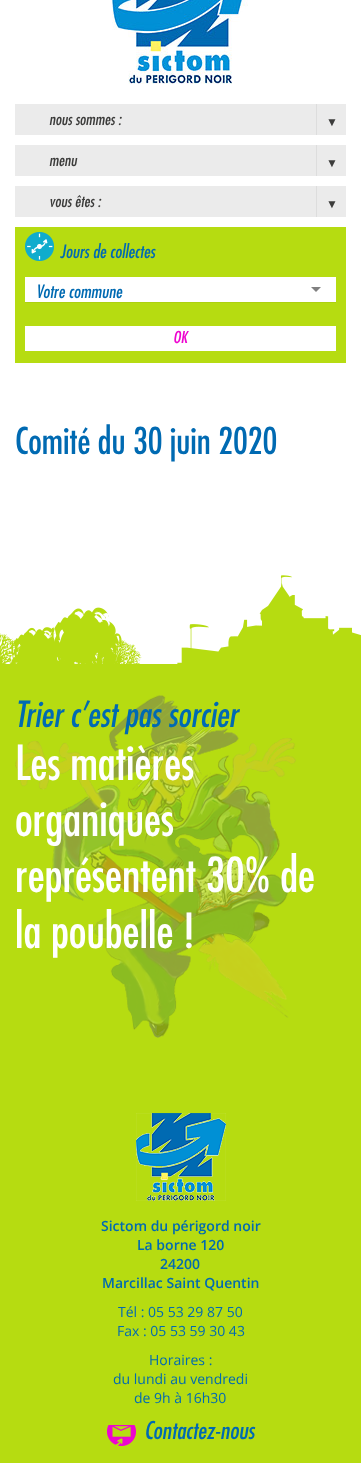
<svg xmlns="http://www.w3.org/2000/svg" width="361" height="1463">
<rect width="100%" height="100%" fill="#fff"/>
<image x="112" y="0" width="136" height="84" href="media/1.png"/>
<rect x="15" y="104" width="331" height="31" fill="#ebebeb"/>
<text x="49" y="125" style="font-family:Futura;font-size:16px;font-weight:500;font-style:italic;fill:#3c3c3b">nous sommes :</text>
<rect x="316" y="104" width="1" height="31" fill="#ddd"/>
<text x="326" y="126" style="font-family:Liberation Serif;font-size:12px;fill:#3c3c3b">▼</text>
<rect x="15" y="145" width="331" height="31" fill="#ebebeb"/>
<text x="49" y="166" style="font-family:Futura;font-size:16px;font-weight:500;font-style:italic;fill:#3c3c3b">menu</text>
<rect x="316" y="145" width="1" height="31" fill="#ddd"/>
<text x="326" y="167" style="font-family:Liberation Serif;font-size:12px;fill:#3c3c3b">▼</text>
<rect x="15" y="186" width="331" height="31" fill="#ebebeb"/>
<text x="49" y="207" style="font-family:Futura;font-size:16px;font-weight:500;font-style:italic;fill:#3c3c3b">vous êtes :</text>
<rect x="316" y="186" width="1" height="31" fill="#ddd"/>
<text x="326" y="208" style="font-family:Liberation Serif;font-size:12px;fill:#3c3c3b">▼</text>
<rect x="15" y="227" width="331" height="136" fill="#b6dc11"/>
<image x="25" y="232" width="29" height="29" href="media/2.png"/>
<text x="60" y="258" style="font-family:Futura;font-size:18px;font-weight:500;font-style:italic;fill:#006ab2">Jours de collectes</text>
<rect x="25" y="302" width="311" height="1" fill="#add110"/>
<rect x="25" y="277" width="311" height="25" fill="#fff"/>
<text x="36" y="298" style="font-family:Futura;font-size:18px;font-weight:500;font-style:italic;fill:#006ab2">Votre commune</text>
<path d="M311 287h10l-5 5z" fill="#808080"/>
<rect x="25" y="326" width="311" height="25" fill="#fff"/>
<text x="173" y="343" style="font-family:Futura;font-size:16px;font-weight:500;font-style:italic;fill:#ed05cf">OK</text>
<text x="15" y="454" style="font-family:Futura;font-size:36px;font-weight:500;fill:#006ab2">Comité du 30 juin 2020</text>
<image x="0" y="575" width="361" height="90" href="media/3.png"/>
<rect y="665" width="361" height="798" fill="#b6dc11"/>
<image x="15" y="695" width="281" height="343" href="media/4.png"/>
<text x="15" y="727" style="font-family:Futura;font-size:35px;font-weight:500;font-style:italic;fill:#006ab2">Trier c’est pas sorcier</text>
<text x="15" y="780" style="font-family:Futura;font-size:47px;font-weight:500;fill:#fff">Les matières</text>
<text x="15" y="836" style="font-family:Futura;font-size:47px;font-weight:500;fill:#fff">organiques</text>
<text x="15" y="892" style="font-family:Futura;font-size:47px;font-weight:500;fill:#fff">représentent 30% de</text>
<text x="15" y="948" style="font-family:Futura;font-size:47px;font-weight:500;fill:#fff">la poubelle !</text>
<image x="136" y="1113" width="90" height="88" href="media/5.png"/>
<text x="101" y="1231" style="font-family:Open Sans;font-size:14px;font-weight:600;fill:#006ab2">Sictom du périgord noir</text>
<text x="137" y="1250" style="font-family:Open Sans;font-size:14px;font-weight:600;fill:#006ab2">La borne 120</text>
<text x="160" y="1269" style="font-family:Open Sans;font-size:14px;font-weight:600;fill:#006ab2">24200</text>
<text x="102" y="1288" style="font-family:Open Sans;font-size:14px;font-weight:600;fill:#006ab2">Marcillac Saint Quentin</text>
<text x="118" y="1317" style="font-family:Open Sans;font-size:14px;fill:#006ab2">Tél : 05 53 29 87 50</text>
<text x="117" y="1336" style="font-family:Open Sans;font-size:14px;fill:#006ab2">Fax : 05 53 59 30 43</text>
<text x="149" y="1365" style="font-family:Open Sans;font-size:14px;fill:#006ab2">Horaires :</text>
<text x="113" y="1384" style="font-family:Open Sans;font-size:14px;fill:#006ab2">du lundi au vendredi</text>
<text x="134" y="1403" style="font-family:Open Sans;font-size:14px;fill:#006ab2">de 9h à 16h30</text>
<image x="107" y="1425" width="29" height="21" href="media/6.png"/>
<text x="144" y="1439" style="font-family:Futura;font-size:24px;font-weight:500;font-style:italic;fill:#006ab2">Contactez-nous</text>
</svg>
